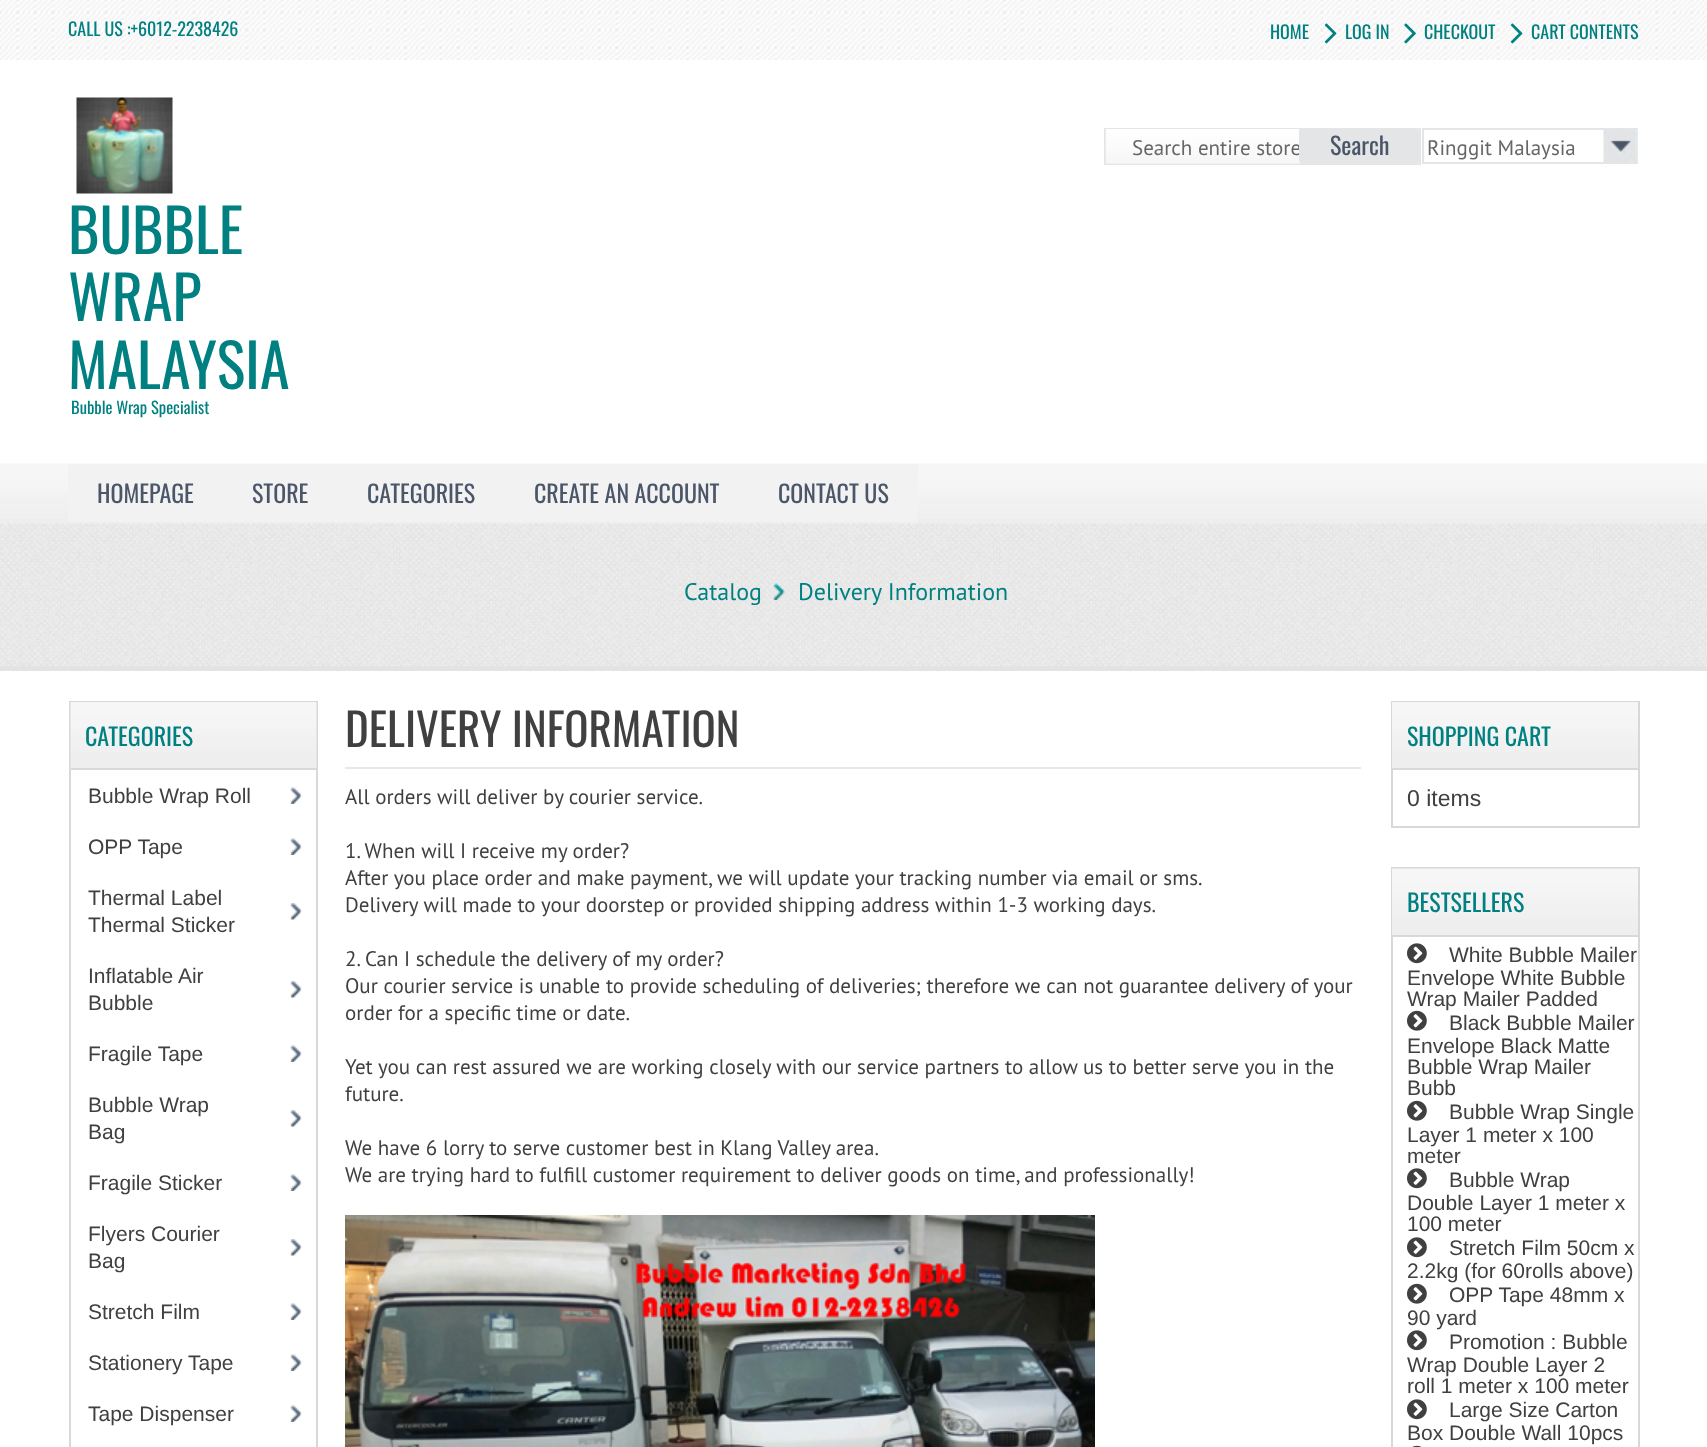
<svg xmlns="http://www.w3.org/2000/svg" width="1707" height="1447">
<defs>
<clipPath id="clip1"><rect x="1106" y="129" width="313" height="35"/></clipPath>
<clipPath id="clip2"><rect x="1422" y="128" width="216" height="37"/></clipPath>
</defs>
<rect width="100%" height="100%" fill="#fff"/>
<image x="0" y="0" width="1707" height="60" href="media/1.png"/>
<text x="68" y="36" style="font-family:Oswald;font-size:18px;fill:#008080">CALL US :+6012-2238426</text>
<text x="1270" y="39" style="font-family:Oswald;font-size:18px;fill:#008080">HOME</text>
<image x="1324" y="23" width="13" height="21" href="media/2.png"/>
<text x="1345" y="39" style="font-family:Oswald;font-size:18px;fill:#008080">LOG IN</text>
<image x="1404" y="23" width="12" height="21" href="media/3.png"/>
<text x="1424" y="39" style="font-family:Oswald;font-size:18px;fill:#008080">CHECKOUT</text>
<image x="1510" y="23" width="13" height="21" href="media/4.png"/>
<text x="1531" y="39" style="font-family:Oswald;font-size:18px;fill:#008080">CART CONTENTS</text>
<rect x="1105" y="129" width="315" height="35" fill="none" stroke="#e3e5e7" stroke-width="2"/>
<rect x="1106" y="163" width="313" height="1" fill="#e8e8e8"/>
<image x="1105" y="129" width="314" height="35" href="media/5.png"/>
<text x="1132" y="155" style="font-family:PT Sans;font-size:21px;fill:#666">Search entire store</text>
<g clip-path="url(#clip1)">
<rect x="1299" y="126" width="120" height="39" rx="5" fill="#e3e5e7"/>
<path d="M1304 128h110c3 0 5 2 5 4c0-11-19-6-23-6h-74c-4 0-23-5-23 6c0-2 2-4 5-4z" fill="#f5f5f6"/>
</g>
<text x="1330" y="155" style="font-family:Oswald;font-size:24px;fill:#4b5668">Search</text>
<image x="1603" y="130" width="35" height="32" href="media/6.png"/>
<g clip-path="url(#clip2)">
<rect x="1423" y="129" width="244" height="34" fill="none" stroke="#e3e5e7" stroke-width="2"/>
</g>
<text x="1427" y="155" style="font-family:PT Sans;font-size:21px;fill:#666">Ringgit Malaysia</text>
<image x="76" y="97" width="97" height="97" href="media/7.png"/>
<text x="68" y="254" style="font-family:Oswald;font-size:60px;fill:#008080">BUBBLE</text>
<text x="68" y="321" style="font-family:Oswald;font-size:60px;fill:#008080">WRAP</text>
<text x="68" y="389" style="font-family:Oswald;font-size:60px;fill:#008080">MALAYSIA</text>
<text x="71" y="414" style="font-family:Oswald;font-size:16.5px;fill:#008080">Bubble Wrap Specialist</text>
<image x="0" y="463" width="1707" height="61" href="media/8.png"/>
<rect x="68" y="464" width="850" height="58" fill="#f2f2f2"/>
<text x="97" y="503" style="font-family:Oswald;font-size:24px;fill:#4b5668">HOMEPAGE</text>
<text x="252" y="503" style="font-family:Oswald;font-size:24px;fill:#4b5668">STORE</text>
<text x="367" y="503" style="font-family:Oswald;font-size:24px;fill:#4b5668">CATEGORIES</text>
<text x="534" y="503" style="font-family:Oswald;font-size:24px;fill:#4b5668">CREATE AN ACCOUNT</text>
<text x="778" y="503" style="font-family:Oswald;font-size:24px;fill:#4b5668">CONTACT US</text>
<image x="0" y="523" width="1707" height="143" href="media/9.png"/>
<rect y="666" width="1707" height="5" fill="#e3e3e3"/>
<image x="773" y="583" width="12" height="17" href="media/10.png"/>
<text x="684" y="600" style="font-family:PT Sans;font-size:24px;fill:#008080">Catalog</text>
<text x="798" y="600" style="font-family:PT Sans;font-size:24px;fill:#008080">Delivery Information</text>
<rect x="70" y="702" width="247" height="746" fill="none" stroke="#d8d8d8" stroke-width="2"/>
<image x="70" y="702" width="247" height="68" href="media/11.png"/>
<rect x="71" y="768" width="246" height="2" fill="#d9d9d9"/>
<text x="85" y="746" style="font-family:Oswald;font-size:24px;fill:#008080">CATEGORIES</text>
<image x="290" y="787" width="12" height="17" href="media/12.png"/>
<text x="88" y="803" style="font-family:Liberation Sans;font-size:21px;fill:#404040">Bubble Wrap Roll</text>
<image x="290" y="838" width="12" height="17" href="media/12.png"/>
<text x="88" y="854" style="font-family:Liberation Sans;font-size:21px;fill:#404040">OPP Tape</text>
<image x="290" y="903" width="12" height="17" href="media/13.png"/>
<text x="88" y="905" style="font-family:Liberation Sans;font-size:21px;fill:#404040">Thermal Label</text>
<text x="88" y="932" style="font-family:Liberation Sans;font-size:21px;fill:#404040">Thermal Sticker</text>
<image x="290" y="981" width="12" height="17" href="media/13.png"/>
<text x="88" y="983" style="font-family:Liberation Sans;font-size:21px;fill:#404040">Inflatable Air</text>
<text x="88" y="1010" style="font-family:Liberation Sans;font-size:21px;fill:#404040">Bubble</text>
<image x="290" y="1045" width="12" height="17" href="media/12.png"/>
<text x="88" y="1061" style="font-family:Liberation Sans;font-size:21px;fill:#404040">Fragile Tape</text>
<image x="290" y="1110" width="12" height="17" href="media/13.png"/>
<text x="88" y="1112" style="font-family:Liberation Sans;font-size:21px;fill:#404040">Bubble Wrap</text>
<text x="88" y="1139" style="font-family:Liberation Sans;font-size:21px;fill:#404040">Bag</text>
<image x="290" y="1174" width="12" height="17" href="media/12.png"/>
<text x="88" y="1190" style="font-family:Liberation Sans;font-size:21px;fill:#404040">Fragile Sticker</text>
<image x="290" y="1239" width="12" height="17" href="media/13.png"/>
<text x="88" y="1241" style="font-family:Liberation Sans;font-size:21px;fill:#404040">Flyers Courier</text>
<text x="88" y="1268" style="font-family:Liberation Sans;font-size:21px;fill:#404040">Bag</text>
<image x="290" y="1303" width="12" height="17" href="media/12.png"/>
<text x="88" y="1319" style="font-family:Liberation Sans;font-size:21px;fill:#404040">Stretch Film</text>
<image x="290" y="1354" width="12" height="17" href="media/12.png"/>
<text x="88" y="1370" style="font-family:Liberation Sans;font-size:21px;fill:#404040">Stationery Tape</text>
<image x="290" y="1405" width="12" height="17" href="media/12.png"/>
<text x="88" y="1421" style="font-family:Liberation Sans;font-size:21px;fill:#404040">Tape Dispenser</text>
<rect x="345" y="767" width="1016" height="2" fill="#e9e8e8"/>
<text x="345" y="747" style="font-family:Oswald;font-size:45px;fill:#404040">DELIVERY INFORMATION</text>
<text x="345" y="804" style="font-family:PT Sans;font-size:21px;fill:#404040">All orders will deliver by courier service.</text>
<text x="345" y="858" style="font-family:PT Sans;font-size:21px;fill:#404040">1. When will I receive my order?</text>
<text x="345" y="885" style="font-family:PT Sans;font-size:21px;fill:#404040">After you place order and make payment, we will update your tracking number via email or sms.</text>
<text x="345" y="912" style="font-family:PT Sans;font-size:21px;fill:#404040">Delivery will made to your doorstep or provided shipping address within 1-3 working days.</text>
<text x="345" y="966" style="font-family:PT Sans;font-size:21px;fill:#404040">2. Can I schedule the delivery of my order?</text>
<text x="345" y="993" style="font-family:PT Sans;font-size:21px;fill:#404040">Our courier service is unable to provide scheduling of deliveries; therefore we can not guarantee delivery of your</text>
<text x="345" y="1020" style="font-family:PT Sans;font-size:21px;fill:#404040">order for a specific time or date.</text>
<text x="345" y="1074" style="font-family:PT Sans;font-size:21px;fill:#404040">Yet you can rest assured we are working closely with our service partners to allow us to better serve you in the</text>
<text x="345" y="1101" style="font-family:PT Sans;font-size:21px;fill:#404040">future.</text>
<text x="345" y="1155" style="font-family:PT Sans;font-size:21px;fill:#404040">We have 6 lorry to serve customer best in Klang Valley area.</text>
<text x="345" y="1182" style="font-family:PT Sans;font-size:21px;fill:#404040">We are trying hard to fulfill customer requirement to deliver goods on time, and professionally!</text>
<image x="345" y="1215" width="750" height="232" href="media/14.png"/>
<rect x="1392" y="702" width="247" height="125" fill="none" stroke="#d8d8d8" stroke-width="2"/>
<image x="1392" y="702" width="246" height="66" href="media/15.png"/>
<rect x="1392" y="768" width="246" height="2" fill="#d9d9d9"/>
<text x="1407" y="746" style="font-family:Oswald;font-size:24px;fill:#008080">SHOPPING CART</text>
<text x="1407" y="806" style="font-family:Liberation Sans;font-size:23px;fill:#404040">0 items</text>
<rect x="1392" y="868" width="247" height="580" fill="none" stroke="#d8d8d8" stroke-width="2"/>
<image x="1392" y="868" width="246" height="67" href="media/16.png"/>
<rect x="1392" y="935" width="246" height="2" fill="#d9d9d9"/>
<text x="1407" y="912" style="font-family:Oswald;font-size:24px;fill:#008080">BESTSELLERS</text>
<image x="1407" y="943" width="20" height="21" href="media/17.png"/>
<text x="1449" y="962" style="font-family:Liberation Sans;font-size:21px;fill:#404040">White Bubble Mailer</text>
<text x="1407" y="985" style="font-family:Liberation Sans;font-size:21px;fill:#404040">Envelope White Bubble</text>
<text x="1407" y="1006" style="font-family:Liberation Sans;font-size:21px;fill:#404040">Wrap Mailer Padded</text>
<image x="1407" y="1010" width="20" height="21" href="media/18.png"/>
<text x="1449" y="1030" style="font-family:Liberation Sans;font-size:21px;fill:#404040">Black Bubble Mailer</text>
<text x="1407" y="1053" style="font-family:Liberation Sans;font-size:21px;fill:#404040">Envelope Black Matte</text>
<text x="1407" y="1074" style="font-family:Liberation Sans;font-size:21px;fill:#404040">Bubble Wrap Mailer</text>
<text x="1407" y="1095" style="font-family:Liberation Sans;font-size:21px;fill:#404040">Bubb</text>
<image x="1407" y="1100" width="20" height="21" href="media/18.png"/>
<text x="1449" y="1119" style="font-family:Liberation Sans;font-size:21px;fill:#404040">Bubble Wrap Single</text>
<text x="1407" y="1142" style="font-family:Liberation Sans;font-size:21px;fill:#404040">Layer 1 meter x 100</text>
<text x="1407" y="1163" style="font-family:Liberation Sans;font-size:21px;fill:#404040">meter</text>
<image x="1407" y="1168" width="20" height="21" href="media/17.png"/>
<text x="1449" y="1187" style="font-family:Liberation Sans;font-size:21px;fill:#404040">Bubble Wrap</text>
<text x="1407" y="1210" style="font-family:Liberation Sans;font-size:21px;fill:#404040">Double Layer 1 meter x</text>
<text x="1407" y="1231" style="font-family:Liberation Sans;font-size:21px;fill:#404040">100 meter</text>
<image x="1407" y="1237" width="20" height="21" href="media/17.png"/>
<text x="1449" y="1255" style="font-family:Liberation Sans;font-size:21px;fill:#404040">Stretch Film 50cm x</text>
<text x="1407" y="1278" style="font-family:Liberation Sans;font-size:21px;fill:#404040">2.2kg (for 60rolls above)</text>
<image x="1407" y="1283" width="20" height="21" href="media/18.png"/>
<text x="1449" y="1302" style="font-family:Liberation Sans;font-size:21px;fill:#404040">OPP Tape 48mm x</text>
<text x="1407" y="1325" style="font-family:Liberation Sans;font-size:21px;fill:#404040">90 yard</text>
<image x="1407" y="1330" width="20" height="21" href="media/17.png"/>
<text x="1449" y="1349" style="font-family:Liberation Sans;font-size:21px;fill:#404040">Promotion : Bubble</text>
<text x="1407" y="1372" style="font-family:Liberation Sans;font-size:21px;fill:#404040">Wrap Double Layer 2</text>
<text x="1407" y="1393" style="font-family:Liberation Sans;font-size:21px;fill:#404040">roll 1 meter x 100 meter</text>
<image x="1407" y="1399" width="20" height="21" href="media/17.png"/>
<text x="1449" y="1417" style="font-family:Liberation Sans;font-size:21px;fill:#404040">Large Size Carton</text>
<text x="1407" y="1440" style="font-family:Liberation Sans;font-size:21px;fill:#404040">Box Double Wall 10pcs</text>
<image x="1412" y="1445" width="10" height="2" href="media/19.png"/>
</svg>
